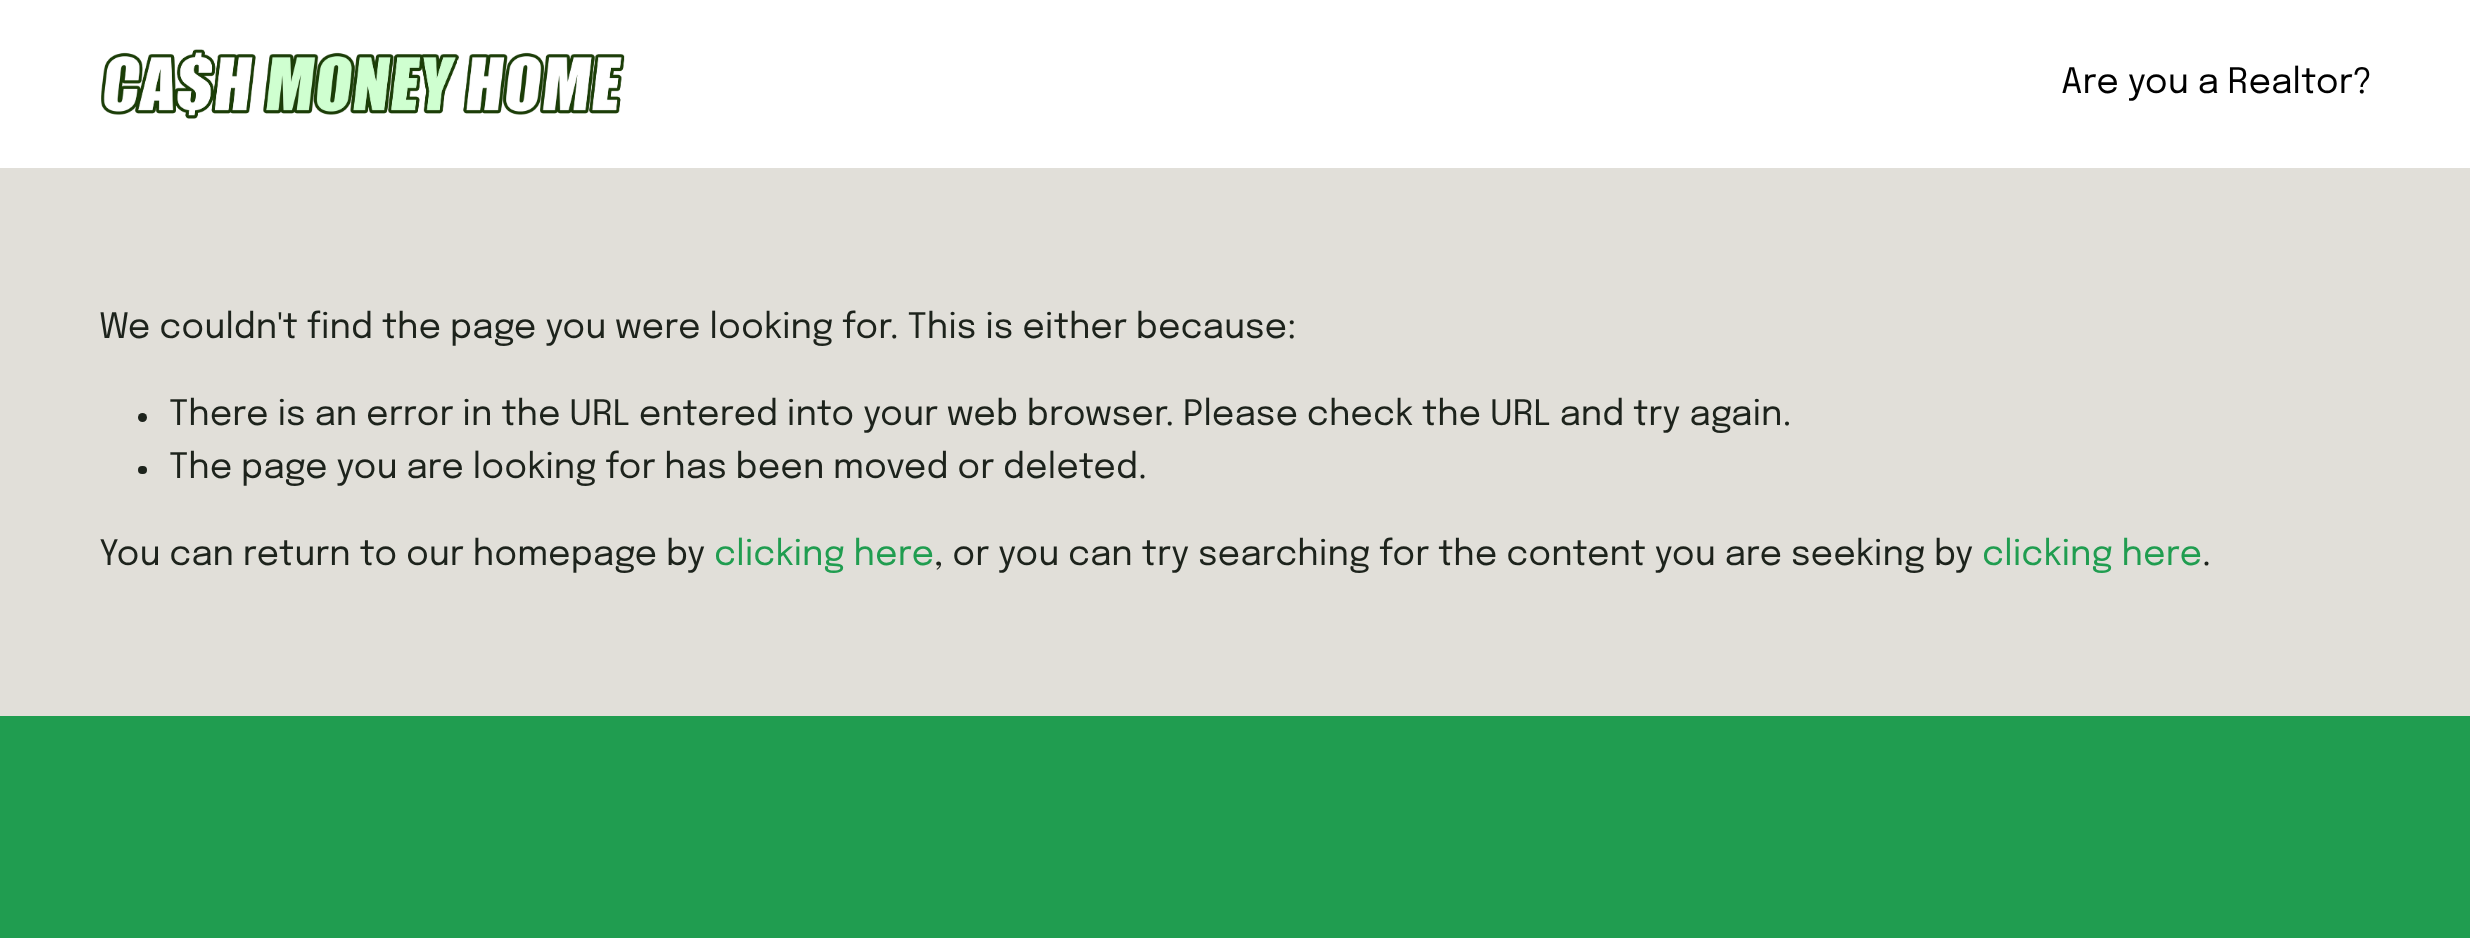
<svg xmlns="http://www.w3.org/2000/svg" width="2470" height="938">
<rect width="100%" height="100%" fill="#e1dfd9"/>
<rect width="2470" height="168" fill="#fff"/>
<image x="101" y="49" width="524" height="70" href="media/1.png"/>
<text x="2061" y="93" style="font-family:Epilogue;font-size:35px;fill:#000">Are you a Realtor?</text>
<text x="99" y="338" style="font-family:Epilogue;font-size:35px;fill:#1d231c">We couldn't find the page you were looking for. This is either because:</text>
<circle cx="142.5" cy="417.5" r="4.5" fill="#1d231c"/>
<text x="169" y="425" style="font-family:Epilogue;font-size:35px;fill:#1d231c">There is an error in the URL entered into your web browser. Please check the URL and try again.</text>
<rect x="138" y="466" width="9" height="8" rx="4" fill="#1d231c"/>
<text x="169" y="478" style="font-family:Epilogue;font-size:35px;fill:#1d231c">The page you are looking for has been moved or deleted.</text>
<text x="99" y="565" style="font-family:Epilogue;font-size:35px;fill:#1d231c">You can return to our homepage by</text>
<text x="714" y="565" style="font-family:Epilogue;font-size:35px;fill:#209d50">clicking here</text>
<text x="934" y="565" style="font-family:Epilogue;font-size:35px;fill:#1d231c">, or you can try searching for the content you are seeking by</text>
<text x="1982" y="565" style="font-family:Epilogue;font-size:35px;fill:#209d50">clicking here</text>
<text x="2202" y="565" style="font-family:Epilogue;font-size:35px;fill:#1d231c">.</text>
<rect y="716" width="2470" height="222" fill="#209d50"/>
</svg>
